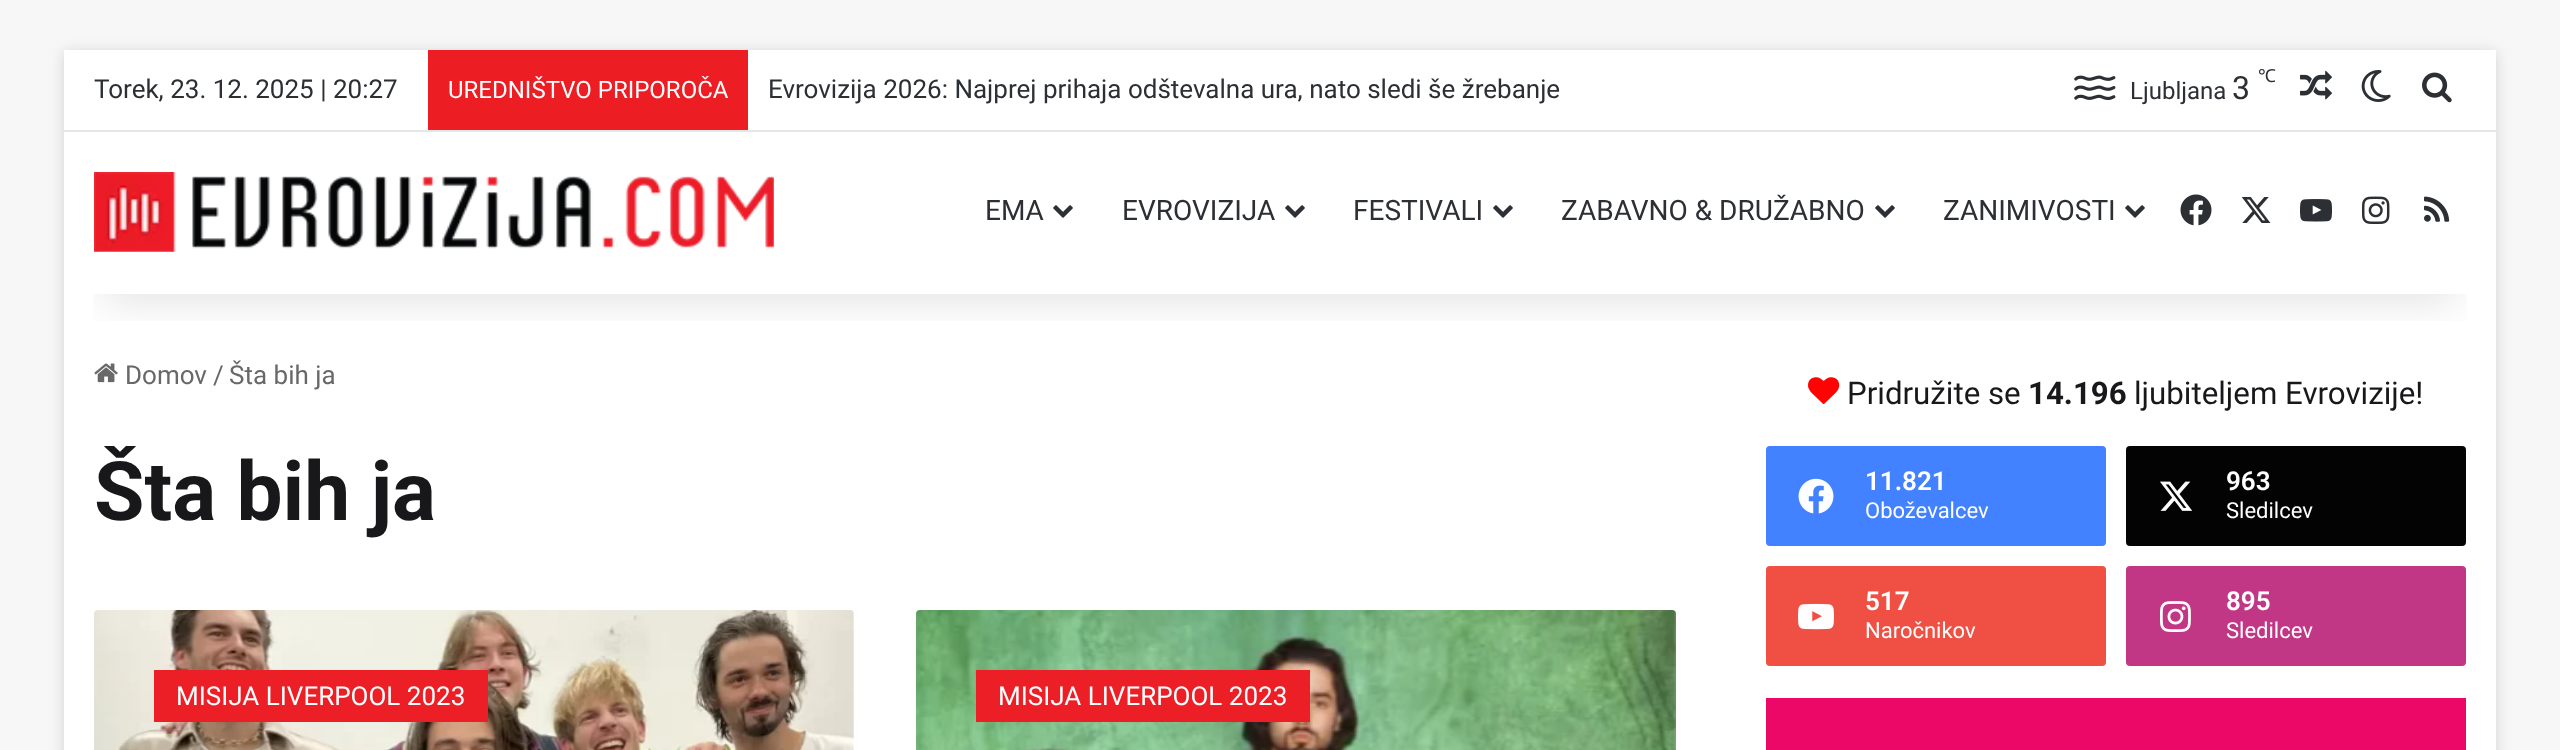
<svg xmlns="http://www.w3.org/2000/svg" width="2560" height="750">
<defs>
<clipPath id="clip1"><rect x="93" y="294" width="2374" height="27"/></clipPath>
</defs>
<rect width="100%" height="100%" fill="#f7f7f7"/>
<rect x="64" y="52" width="2432" height="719" fill="#ababab80" filter="blur(7px)"/>
<rect x="64" y="50" width="2432" height="700" fill="#fff"/>
<image x="94" y="363" width="24" height="20" href="media/12.png"/>
<g clip-path="url(#clip1)">
<rect x="104" y="140" width="2352" height="164" fill="#0000001a" filter="blur(20px)"/>
</g>
<rect x="64" y="130" width="2432" height="2" fill="#e6e6e6"/>
<text x="94" y="98" style="font-family:Roboto;font-size:26px;fill:#2c2f34">Torek, 23. 12. 2025 | 20:27</text>
<rect x="428" y="50" width="320" height="80" fill="#ed1d24"/>
<text x="448" y="98" style="font-family:Roboto;font-size:24px;fill:#fff">UREDNIŠTVO PRIPOROČA</text>
<text x="768" y="98" style="font-family:Roboto;font-size:26px;fill:#2c2f34">Evrovizija 2026: Najprej prihaja odštevalna ura, nato sledi še žrebanje</text>
<image x="2074" y="75" width="42" height="25" href="media/1.png"/>
<text x="2130" y="99" style="font-family:Roboto;font-size:24px;fill:#2c2f34">Ljubljana</text>
<text x="2232" y="99" style="font-family:Roboto;font-size:32px;fill:#2c2f34">3</text>
<text x="2258" y="82" style="font-family:Noto Sans;font-size:18px;fill:#2c2f34">℃</text>
<image x="2300" y="70" width="32" height="30" href="media/2.png"/>
<image x="2361" y="70" width="30" height="32" href="media/3.png"/>
<image x="2422" y="72" width="30" height="31" href="media/4.png"/>
<image x="94" y="172" width="680" height="80" href="media/5.png"/>
<text x="985" y="220" style="font-family:Roboto;font-size:28px;fill:#2c2f34">EMA</text>
<image x="1053" y="205" width="20" height="13" href="media/6.png"/>
<text x="1122" y="220" style="font-family:Roboto;font-size:28px;fill:#2c2f34">EVROVIZIJA</text>
<image x="1285" y="205" width="20" height="13" href="media/6.png"/>
<text x="1353" y="220" style="font-family:Roboto;font-size:28px;fill:#2c2f34">FESTIVALI</text>
<image x="1493" y="205" width="20" height="13" href="media/6.png"/>
<text x="1561" y="220" style="font-family:Roboto;font-size:28px;fill:#2c2f34">ZABAVNO &amp; DRUŽABNO</text>
<image x="1875" y="205" width="20" height="13" href="media/6.png"/>
<text x="1943" y="220" style="font-family:Roboto;font-size:28px;fill:#2c2f34">ZANIMIVOSTI</text>
<image x="2125" y="205" width="20" height="13" href="media/6.png"/>
<image x="2180" y="194" width="32" height="32" href="media/7.png"/>
<image x="2241" y="197" width="30" height="26" href="media/8.png"/>
<image x="2300" y="199" width="32" height="23" href="media/9.png"/>
<image x="2362" y="196" width="28" height="28" href="media/10.png"/>
<image x="2424" y="196" width="26" height="26" href="media/11.png"/>
<text x="125" y="384" style="font-family:Roboto;font-size:26px;fill:#686868">Domov</text>
<text x="213" y="384" style="font-family:Roboto;font-size:26px;fill:#686868">/</text>
<text x="229" y="384" style="font-family:Roboto;font-size:26px;fill:#686868">Šta bih ja</text>
<text x="94" y="520" style="font-family:Roboto;font-size:82px;font-weight:bold;fill:#18181b">Šta bih ja</text>
<image x="94" y="610" width="760" height="140" href="media/13.png"/>
<rect x="154" y="670" width="334" height="52" fill="#ed1f26"/>
<text x="176" y="705" style="font-family:Roboto;font-size:26px;fill:#fff">MISIJA LIVERPOOL 2023</text>
<image x="916" y="610" width="760" height="140" href="media/14.png"/>
<rect x="976" y="670" width="334" height="52" fill="#ed1f26"/>
<text x="998" y="705" style="font-family:Roboto;font-size:26px;fill:#fff">MISIJA LIVERPOOL 2023</text>
<image x="1808" y="377" width="32" height="27" href="media/15.png"/>
<text x="1847" y="404" style="font-family:Roboto;font-size:31.25px;fill:#18181b">Pridružite se</text>
<text x="2028" y="404" style="font-family:Roboto;font-size:31.25px;font-weight:bold;fill:#18181b">14.196</text>
<text x="2134" y="404" style="font-family:Roboto;font-size:31.25px;fill:#18181b">ljubiteljem Evrovizije!</text>
<rect x="1766" y="446" width="340" height="100" rx="4" fill="#4281ff"/>
<image x="1798" y="478" width="36" height="36" href="media/16.png"/>
<text x="1865" y="490" style="font-family:Roboto;font-size:26px;font-weight:600;fill:#fff">11.821</text>
<text x="1865" y="518" style="font-family:Roboto;font-size:22px;fill:#fff">Oboževalcev</text>
<rect x="2126" y="446" width="340" height="100" rx="4" fill="#030303"/>
<image x="2160" y="481" width="33" height="30" href="media/17.png"/>
<text x="2226" y="490" style="font-family:Roboto;font-size:26px;font-weight:600;fill:#fff">963</text>
<text x="2226" y="518" style="font-family:Roboto;font-size:22px;fill:#fff">Sledilcev</text>
<rect x="1766" y="566" width="340" height="100" rx="4" fill="#ef5043"/>
<image x="1798" y="603" width="36" height="27" href="media/18.png"/>
<text x="1865" y="610" style="font-family:Roboto;font-size:26px;font-weight:600;fill:#fff">517</text>
<text x="1865" y="638" style="font-family:Roboto;font-size:22px;fill:#fff">Naročnikov</text>
<rect x="2126" y="566" width="340" height="100" rx="4" fill="#c23785"/>
<image x="2160" y="601" width="31" height="31" href="media/19.png"/>
<text x="2226" y="610" style="font-family:Roboto;font-size:26px;font-weight:600;fill:#fff">895</text>
<text x="2226" y="638" style="font-family:Roboto;font-size:22px;fill:#fff">Sledilcev</text>
<rect x="1766" y="698" width="700" height="52" fill="#ec0867"/>
</svg>
